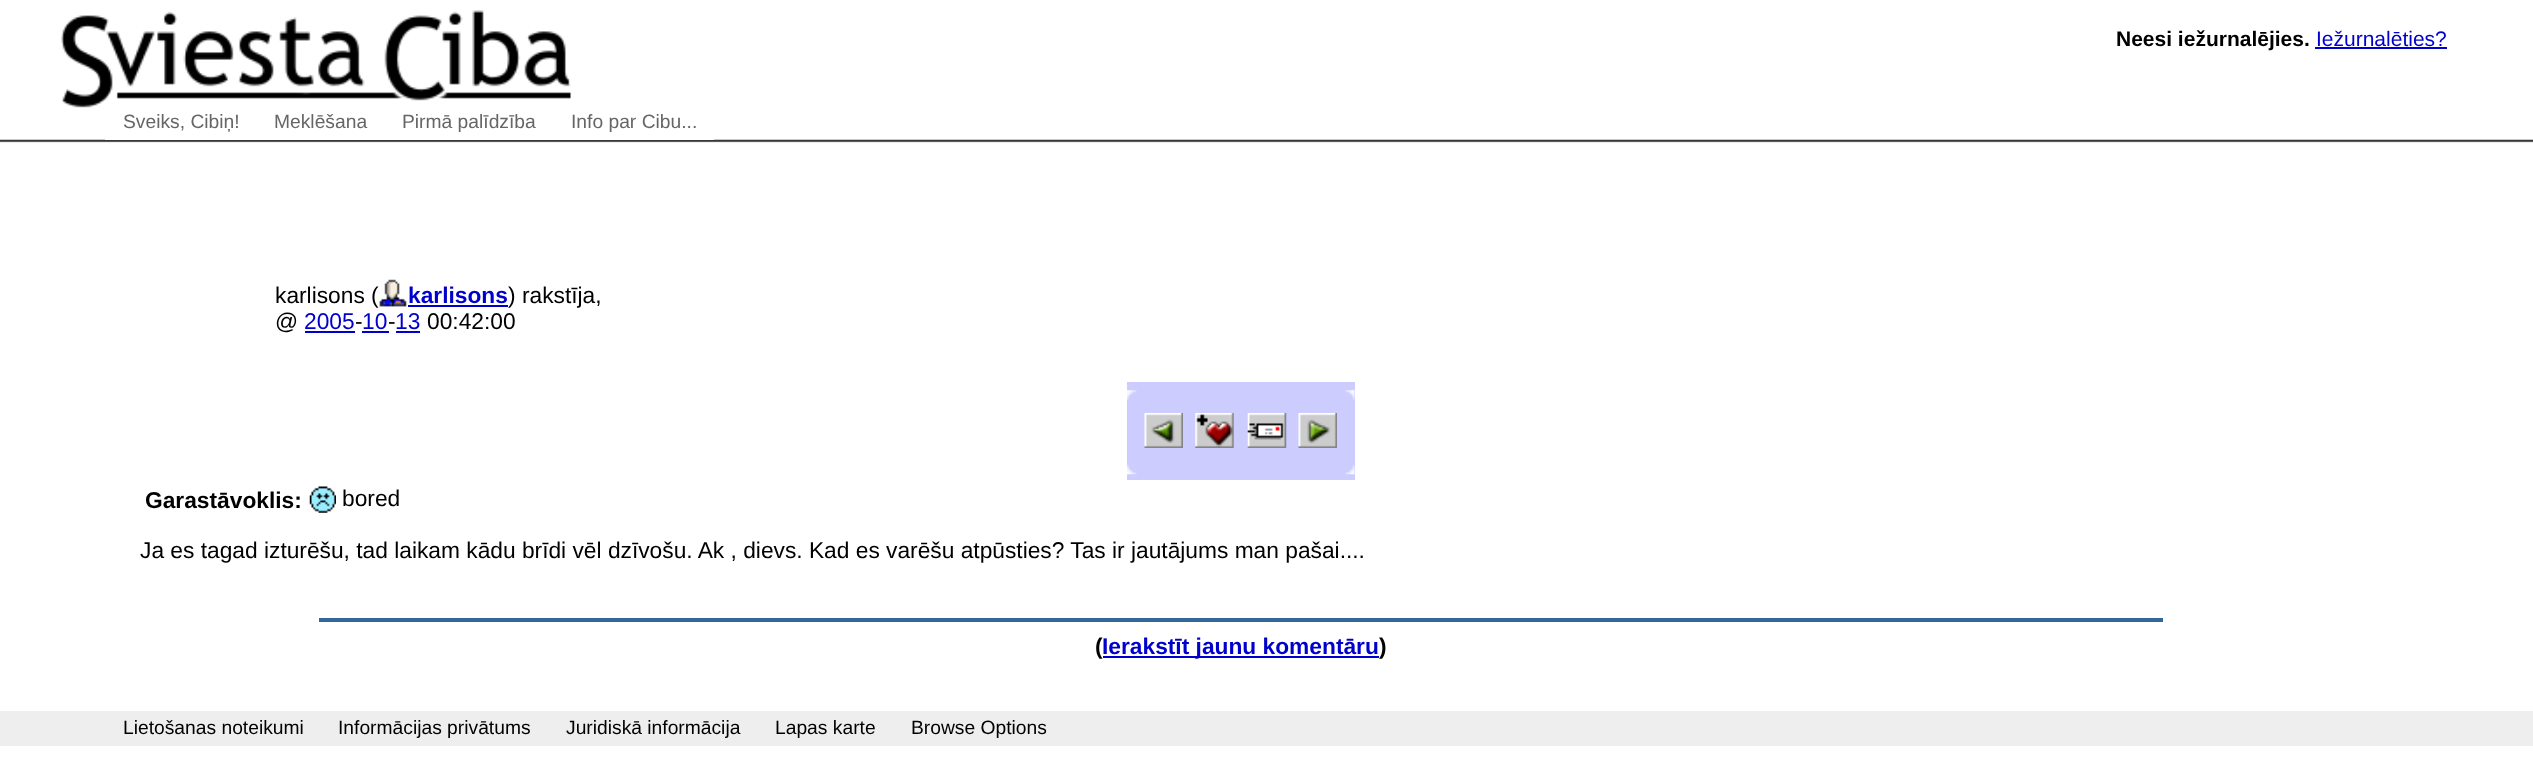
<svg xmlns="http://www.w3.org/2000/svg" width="2533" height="772">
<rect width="100%" height="100%" fill="#fff"/>
<image x="0" y="139" width="2533" height="4" href="media/1.png"/>
<image x="61" y="10" width="510" height="98" href="media/2.png"/>
<text x="2116" y="46" style="font-family:Liberation Sans;font-size:21px;font-weight:bold;fill:#000">Neesi iežurnalējies.</text>
<text x="2316" y="46" style="font-family:Liberation Sans;font-size:21px;fill:#00c">Iežurnalēties?</text>
<rect x="2315" y="47" width="132" height="2" fill="#00c"/>
<rect x="105" y="139" width="609" height="1" fill="#fff"/>
<text x="123" y="128" style="font-family:Liberation Sans;font-size:19.25px;fill:#666">Sveiks, Cibiņ!</text>
<text x="274" y="128" style="font-family:Liberation Sans;font-size:19.25px;fill:#666">Meklēšana</text>
<text x="402" y="128" style="font-family:Liberation Sans;font-size:19.25px;fill:#666">Pirmā palīdzība</text>
<text x="571" y="128" style="font-family:Liberation Sans;font-size:19.25px;fill:#666">Info par Cibu...</text>
<text x="275" y="303" style="font-family:Liberation Sans;font-size:22.75px;fill:#000">karlisons (</text>
<image x="379" y="279" width="28" height="28" href="media/3.png"/>
<text x="408" y="303" style="font-family:Liberation Sans;font-size:22.75px;font-weight:bold;fill:#00c">karlisons</text>
<rect x="408" y="305" width="100" height="2" fill="#00c"/>
<text x="508" y="303" style="font-family:Liberation Sans;font-size:22.75px;fill:#000">) rakstīja,</text>
<text x="275" y="329" style="font-family:Liberation Sans;font-size:22.75px;fill:#000">@</text>
<text x="304" y="329" style="font-family:Liberation Sans;font-size:22.75px;fill:#00c">2005</text>
<text x="355" y="329" style="font-family:Liberation Sans;font-size:22.75px;fill:#000">-</text>
<rect x="305" y="331" width="50" height="2" fill="#00c"/>
<rect x="362" y="331" width="27" height="2" fill="#00c"/>
<text x="362" y="329" style="font-family:Liberation Sans;font-size:22.75px;fill:#00c">10</text>
<text x="388" y="329" style="font-family:Liberation Sans;font-size:22.75px;fill:#000">-</text>
<rect x="396" y="331" width="24" height="2" fill="#00c"/>
<text x="395" y="329" style="font-family:Liberation Sans;font-size:22.75px;fill:#00c">13</text>
<text x="427" y="329" style="font-family:Liberation Sans;font-size:22.75px;fill:#000">00:42:00</text>
<rect x="1127" y="382" width="228" height="98" fill="#ccf"/>
<image x="1127" y="390" width="10" height="10" href="media/4.png"/>
<image x="1345" y="390" width="10" height="10" href="media/5.png"/>
<image x="1144" y="413" width="39" height="35" href="media/6.png"/>
<image x="1195" y="413" width="39" height="35" href="media/7.png"/>
<image x="1247" y="413" width="40" height="35" href="media/8.png"/>
<image x="1298" y="413" width="39" height="35" href="media/9.png"/>
<image x="1127" y="465" width="10" height="10" href="media/10.png"/>
<image x="1345" y="465" width="10" height="10" href="media/11.png"/>
<text x="145" y="508" style="font-family:Liberation Sans;font-size:22.75px;font-weight:bold;fill:#000">Garastāvoklis:</text>
<image x="309" y="486" width="27" height="27" href="media/12.png"/>
<text x="342" y="506" style="font-family:Liberation Sans;font-size:22.75px;fill:#000">bored</text>
<text x="140" y="558" style="font-family:Liberation Sans;font-size:22.75px;fill:#000">Ja es tagad izturēšu, tad laikam kādu brīdi vēl dzīvošu. Ak , dievs. Kad es varēšu atpūsties? Tas ir jautājums man pašai....</text>
<rect x="319" y="618" width="1844" height="4" fill="#369"/>
<text x="1095" y="654" style="font-family:Liberation Sans;font-size:22.75px;font-weight:bold;fill:#000">(</text>
<rect x="1103" y="656" width="276" height="2" fill="#00c"/>
<text x="1102" y="654" style="font-family:Liberation Sans;font-size:22.75px;font-weight:bold;fill:#00c">Ierakstīt jaunu komentāru</text>
<text x="1379" y="654" style="font-family:Liberation Sans;font-size:22.75px;font-weight:bold;fill:#000">)</text>
<rect y="711" width="2533" height="35" fill="#eee"/>
<text x="123" y="734" style="font-family:Liberation Sans;font-size:19.25px;fill:#000">Lietošanas noteikumi</text>
<text x="338" y="734" style="font-family:Liberation Sans;font-size:19.25px;fill:#000">Informācijas privātums</text>
<text x="566" y="734" style="font-family:Liberation Sans;font-size:19.25px;fill:#000">Juridiskā informācija</text>
<text x="775" y="734" style="font-family:Liberation Sans;font-size:19.25px;fill:#000">Lapas karte</text>
<text x="911" y="734" style="font-family:Liberation Sans;font-size:19.25px;fill:#000">Browse Options</text>
</svg>
